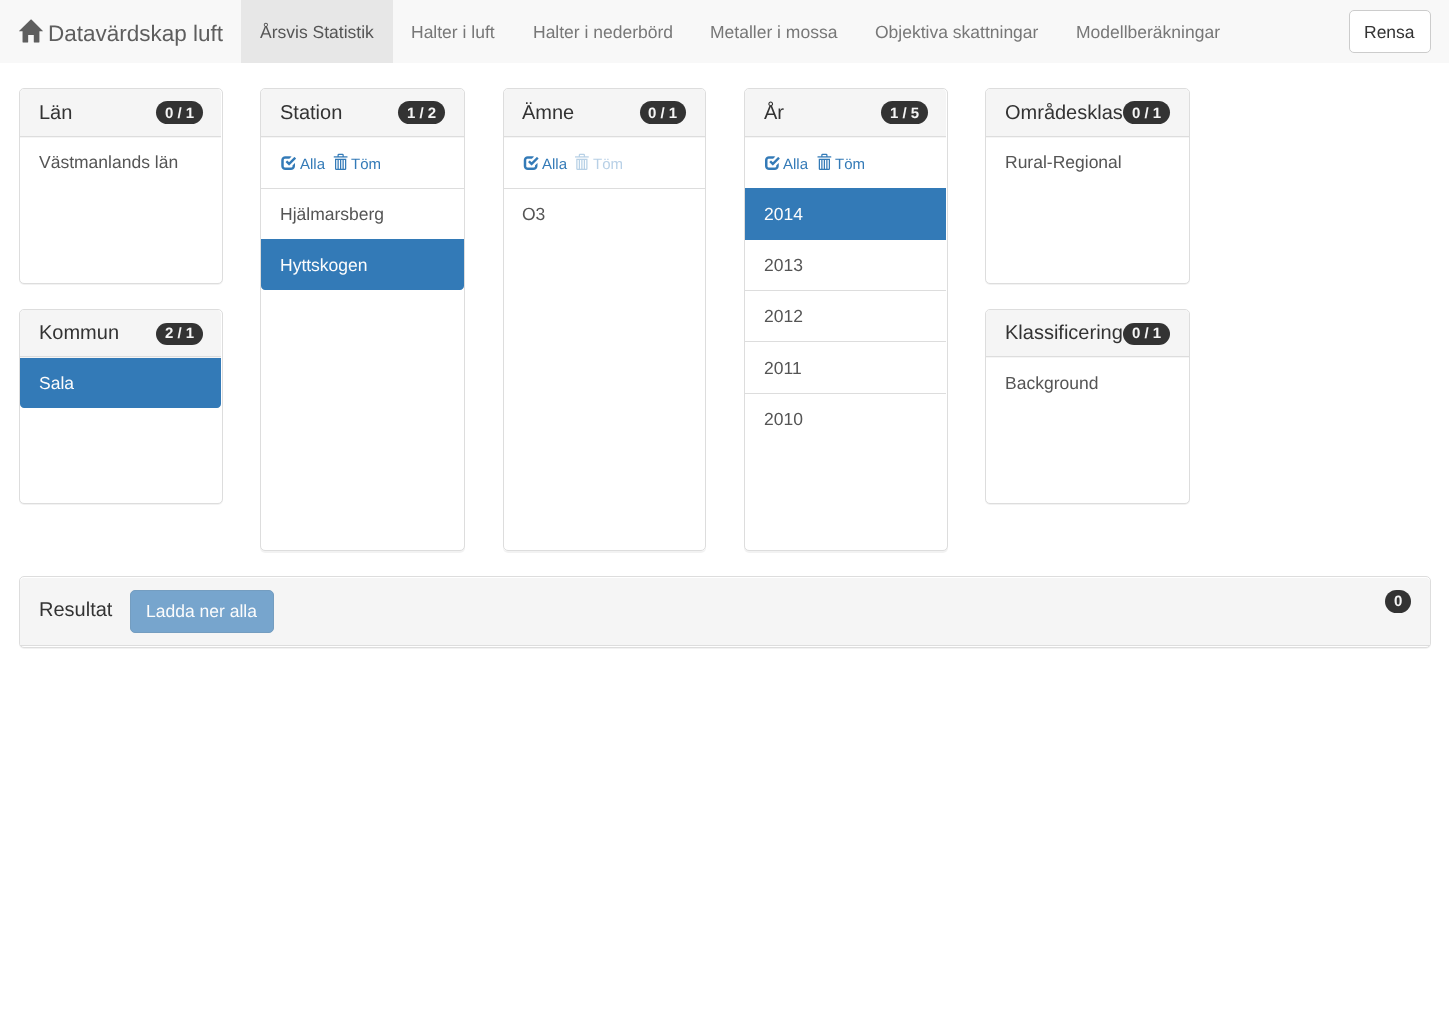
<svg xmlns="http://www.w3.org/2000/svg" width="1449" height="1017">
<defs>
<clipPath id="clip1"><path d="M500 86h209v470h-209zm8 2h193c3 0 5 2 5 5v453c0 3-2 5-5 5h-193c-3 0-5-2-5-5v-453c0-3 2-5 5-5z" clip-rule="evenodd"/></clipPath>
</defs>
<rect width="100%" height="100%" fill="#fff"/>
<rect width="1449" height="63" fill="#f8f8f8"/>
<image x="19" y="19" width="24" height="24" href="media/1.png"/>
<text x="48" y="41" style="font-family:Liberation Sans;font-size:22.5px;fill:#5e5e5e">Datavärdskap luft</text>
<rect x="241" width="152" height="63" fill="#e7e7e7"/>
<text x="260" y="38" style="font-family:Liberation Sans;font-size:17.5px;fill:#555">Årsvis Statistik</text>
<text x="411" y="38" style="font-family:Liberation Sans;font-size:17.5px;fill:#777">Halter i luft</text>
<text x="533" y="38" style="font-family:Liberation Sans;font-size:17.5px;fill:#777">Halter i nederbörd</text>
<text x="710" y="38" style="font-family:Liberation Sans;font-size:17.5px;fill:#777">Metaller i mossa</text>
<text x="875" y="38" style="font-family:Liberation Sans;font-size:17.5px;fill:#777">Objektiva skattningar</text>
<text x="1076" y="38" style="font-family:Liberation Sans;font-size:17.5px;fill:#777">Modellberäkningar</text>
<rect x="1349.5" y="10.5" width="81" height="42" rx="4.5" fill="#fff" stroke="#ccc"/>
<text x="1364" y="38" style="font-family:Liberation Sans;font-size:17.5px;fill:#333">Rensa</text>
<rect x="19" y="89" width="204" height="196" rx="5" fill="#0000000d" filter="blur(0.5px)"/>
<rect x="19.5" y="88.5" width="203" height="195" rx="4.5" fill="#fff" stroke="#ddd"/>
<path d="M24 89h193c2 0 4 2 4 4v45h-201v-45c0-2 2-4 4-4z" fill="#f5f5f5"/>
<rect x="20" y="136" width="201" height="1" fill="#ddd"/>
<text x="39" y="119" style="font-family:Liberation Sans;font-size:20px;fill:#333">Län</text>
<rect x="156" y="101" width="47" height="23" rx="11.5" fill="#333"/>
<text x="165" y="118" style="font-family:Liberation Sans;font-size:15px;font-weight:bold;fill:#f5f5f5">0 / 1</text>
<text x="39" y="168" style="font-family:Liberation Sans;font-size:17.5px;fill:#555">Västmanlands län</text>
<rect x="19" y="310" width="204" height="195" rx="5" fill="#0000000d" filter="blur(0.5px)"/>
<rect x="19.5" y="309.5" width="203" height="194" rx="4.5" fill="#fff" stroke="#ddd"/>
<path d="M24 310h193c2 0 4 2 4 4v44h-201v-44c0-2 2-4 4-4z" fill="#f5f5f5"/>
<rect x="20" y="356" width="201" height="1" fill="#ddd"/>
<text x="39" y="339" style="font-family:Liberation Sans;font-size:20px;fill:#333">Kommun</text>
<rect x="156" y="323" width="47" height="22" rx="11" fill="#333"/>
<text x="165" y="338" style="font-family:Liberation Sans;font-size:15px;font-weight:bold;fill:#f5f5f5">2 / 1</text>
<path d="M20 358h201v46c0 2-2 4-4 4h-193c-2 0-4-2-4-4z" fill="#337ab7"/>
<text x="39" y="389" style="font-family:Liberation Sans;font-size:17.5px;fill:#fcfcfc">Sala</text>
<rect x="260" y="89" width="205" height="464" rx="5" fill="#0000000d" filter="blur(0.5px)"/>
<rect x="260.5" y="88.5" width="204" height="462" rx="4.5" fill="#fff" stroke="#ddd"/>
<path d="M265 89h195c2 0 4 2 4 4v45h-203v-45c0-2 2-4 4-4z" fill="#f5f5f5"/>
<rect x="261" y="136" width="203" height="1" fill="#ddd"/>
<text x="280" y="119" style="font-family:Liberation Sans;font-size:20px;fill:#333">Station</text>
<rect x="398" y="101" width="47" height="23" rx="11.5" fill="#333"/>
<text x="407" y="118" style="font-family:Liberation Sans;font-size:15px;font-weight:bold;fill:#f5f5f5">1 / 2</text>
<image x="281" y="156" width="15" height="14" href="media/2.png"/>
<text x="300" y="169" style="font-family:Liberation Sans;font-size:15px;fill:#337ab7">Alla</text>
<image x="333" y="153" width="15" height="17" href="media/3.png"/>
<text x="351" y="169" style="font-family:Liberation Sans;font-size:15px;fill:#337ab7">Töm</text>
<rect x="261" y="188" width="203" height="1" fill="#ddd"/>
<text x="280" y="220" style="font-family:Liberation Sans;font-size:17.5px;fill:#555">Hjälmarsberg</text>
<path d="M261 239h203v47c0 2-2 4-4 4h-195c-2 0-4-2-4-4z" fill="#337ab7"/>
<text x="280" y="271" style="font-family:Liberation Sans;font-size:17.5px;fill:#fcfcfc">Hyttskogen</text>
<g clip-path="url(#clip1)">
<rect x="503" y="89" width="203" height="464" rx="5" fill="#0000000d" filter="blur(0.5px)"/>
</g>
<rect x="503.5" y="88.5" width="202" height="462" rx="4.5" fill="none" stroke="#ddd"/>
<path d="M508 89h193c2 0 4 2 4 4v45h-201v-45c0-2 2-4 4-4z" fill="#f5f5f5"/>
<rect x="504" y="136" width="201" height="1" fill="#ddd"/>
<text x="522" y="119" style="font-family:Liberation Sans;font-size:20px;fill:#333">Ämne</text>
<rect x="640" y="101" width="46" height="23" rx="11.5" fill="#333"/>
<text x="648" y="118" style="font-family:Liberation Sans;font-size:15px;font-weight:bold;fill:#f5f5f5">0 / 1</text>
<image x="523" y="156" width="16" height="14" href="media/4.png"/>
<text x="542" y="169" style="font-family:Liberation Sans;font-size:15px;fill:#337ab7">Alla</text>
<image x="575" y="153" width="14" height="17" href="media/5.png"/>
<text x="593" y="169" style="font-family:Liberation Sans;font-size:15px;fill:#b8d0e6">Töm</text>
<rect x="504" y="188" width="201" height="1" fill="#ddd"/>
<text x="522" y="220" style="font-family:Liberation Sans;font-size:17.5px;fill:#555">O3</text>
<rect x="744" y="89" width="204" height="464" rx="5" fill="#0000000d" filter="blur(0.5px)"/>
<rect x="744.5" y="88.5" width="203" height="462" rx="4.5" fill="#fff" stroke="#ddd"/>
<path d="M749 89h193c2 0 4 2 4 4v45h-201v-45c0-2 2-4 4-4z" fill="#f5f5f5"/>
<rect x="745" y="136" width="201" height="1" fill="#ddd"/>
<text x="764" y="119" style="font-family:Liberation Sans;font-size:20px;fill:#333">År</text>
<rect x="881" y="101" width="47" height="23" rx="11.5" fill="#333"/>
<text x="890" y="118" style="font-family:Liberation Sans;font-size:15px;font-weight:bold;fill:#f5f5f5">1 / 5</text>
<image x="765" y="156" width="15" height="14" href="media/6.png"/>
<text x="783" y="169" style="font-family:Liberation Sans;font-size:15px;fill:#337ab7">Alla</text>
<image x="817" y="153" width="15" height="17" href="media/7.png"/>
<text x="835" y="169" style="font-family:Liberation Sans;font-size:15px;fill:#337ab7">Töm</text>
<rect x="745" y="188" width="201" height="52" fill="#337ab7"/>
<text x="764" y="220" style="font-family:Liberation Sans;font-size:17.5px;fill:#fcfcfc">2014</text>
<rect x="745" y="290" width="201" height="1" fill="#ddd"/>
<text x="764" y="271" style="font-family:Liberation Sans;font-size:17.5px;fill:#555">2013</text>
<rect x="745" y="341" width="201" height="1" fill="#ddd"/>
<text x="764" y="322" style="font-family:Liberation Sans;font-size:17.5px;fill:#555">2012</text>
<text x="764" y="374" style="font-family:Liberation Sans;font-size:17.5px;fill:#555">2011</text>
<rect x="745" y="393" width="201" height="1" fill="#ddd"/>
<text x="764" y="425" style="font-family:Liberation Sans;font-size:17.5px;fill:#555">2010</text>
<rect x="985" y="89" width="205" height="196" rx="5" fill="#0000000d" filter="blur(0.5px)"/>
<rect x="985.5" y="88.5" width="204" height="195" rx="4.5" fill="#fff" stroke="#ddd"/>
<path d="M990 89h195c2 0 4 2 4 4v45h-203v-45c0-2 2-4 4-4z" fill="#f5f5f5"/>
<rect x="986" y="136" width="203" height="1" fill="#ddd"/>
<text x="1005" y="119" style="font-family:Liberation Sans;font-size:20px;fill:#333">Områdesklas</text>
<rect x="1123" y="101" width="47" height="23" rx="11.5" fill="#333"/>
<text x="1132" y="118" style="font-family:Liberation Sans;font-size:15px;font-weight:bold;fill:#f5f5f5">0 / 1</text>
<text x="1005" y="168" style="font-family:Liberation Sans;font-size:17.5px;fill:#555">Rural-Regional</text>
<rect x="985" y="310" width="205" height="195" rx="5" fill="#0000000d" filter="blur(0.5px)"/>
<rect x="985.5" y="309.5" width="204" height="194" rx="4.5" fill="#fff" stroke="#ddd"/>
<path d="M990 310h195c2 0 4 2 4 4v44h-203v-44c0-2 2-4 4-4z" fill="#f5f5f5"/>
<rect x="986" y="356" width="203" height="1" fill="#ddd"/>
<text x="1005" y="339" style="font-family:Liberation Sans;font-size:20px;fill:#333">Klassificering</text>
<rect x="1123" y="323" width="47" height="22" rx="11" fill="#333"/>
<text x="1132" y="338" style="font-family:Liberation Sans;font-size:15px;font-weight:bold;fill:#f5f5f5">0 / 1</text>
<text x="1005" y="389" style="font-family:Liberation Sans;font-size:17.5px;fill:#555">Background</text>
<rect x="19" y="578" width="1412" height="71" rx="5" fill="#0000000d" filter="blur(0.5px)"/>
<rect x="19.5" y="576.5" width="1411" height="71" rx="4.5" fill="#fff" stroke="#ddd"/>
<path d="M24 578h1402c2 0 4 2 4 4v64h-1410v-64c0-2 2-4 4-4z" fill="#f5f5f5"/>
<rect x="20" y="645" width="1410" height="1" fill="#ddd"/>
<text x="39" y="616" style="font-family:Liberation Sans;font-size:20px;fill:#333">Resultat</text>
<rect x="130.5" y="590.5" width="143" height="42" rx="4.5" fill="#77a5cd" stroke="#749dc0"/>
<text x="146" y="617" style="font-family:Liberation Sans;font-size:17.5px;fill:#fcfcfc">Ladda ner alla</text>
<rect x="1385" y="590" width="26" height="23" rx="11.5" fill="#333"/>
<text x="1394" y="606" style="font-family:Liberation Sans;font-size:15px;font-weight:bold;fill:#f5f5f5">0</text>
</svg>
